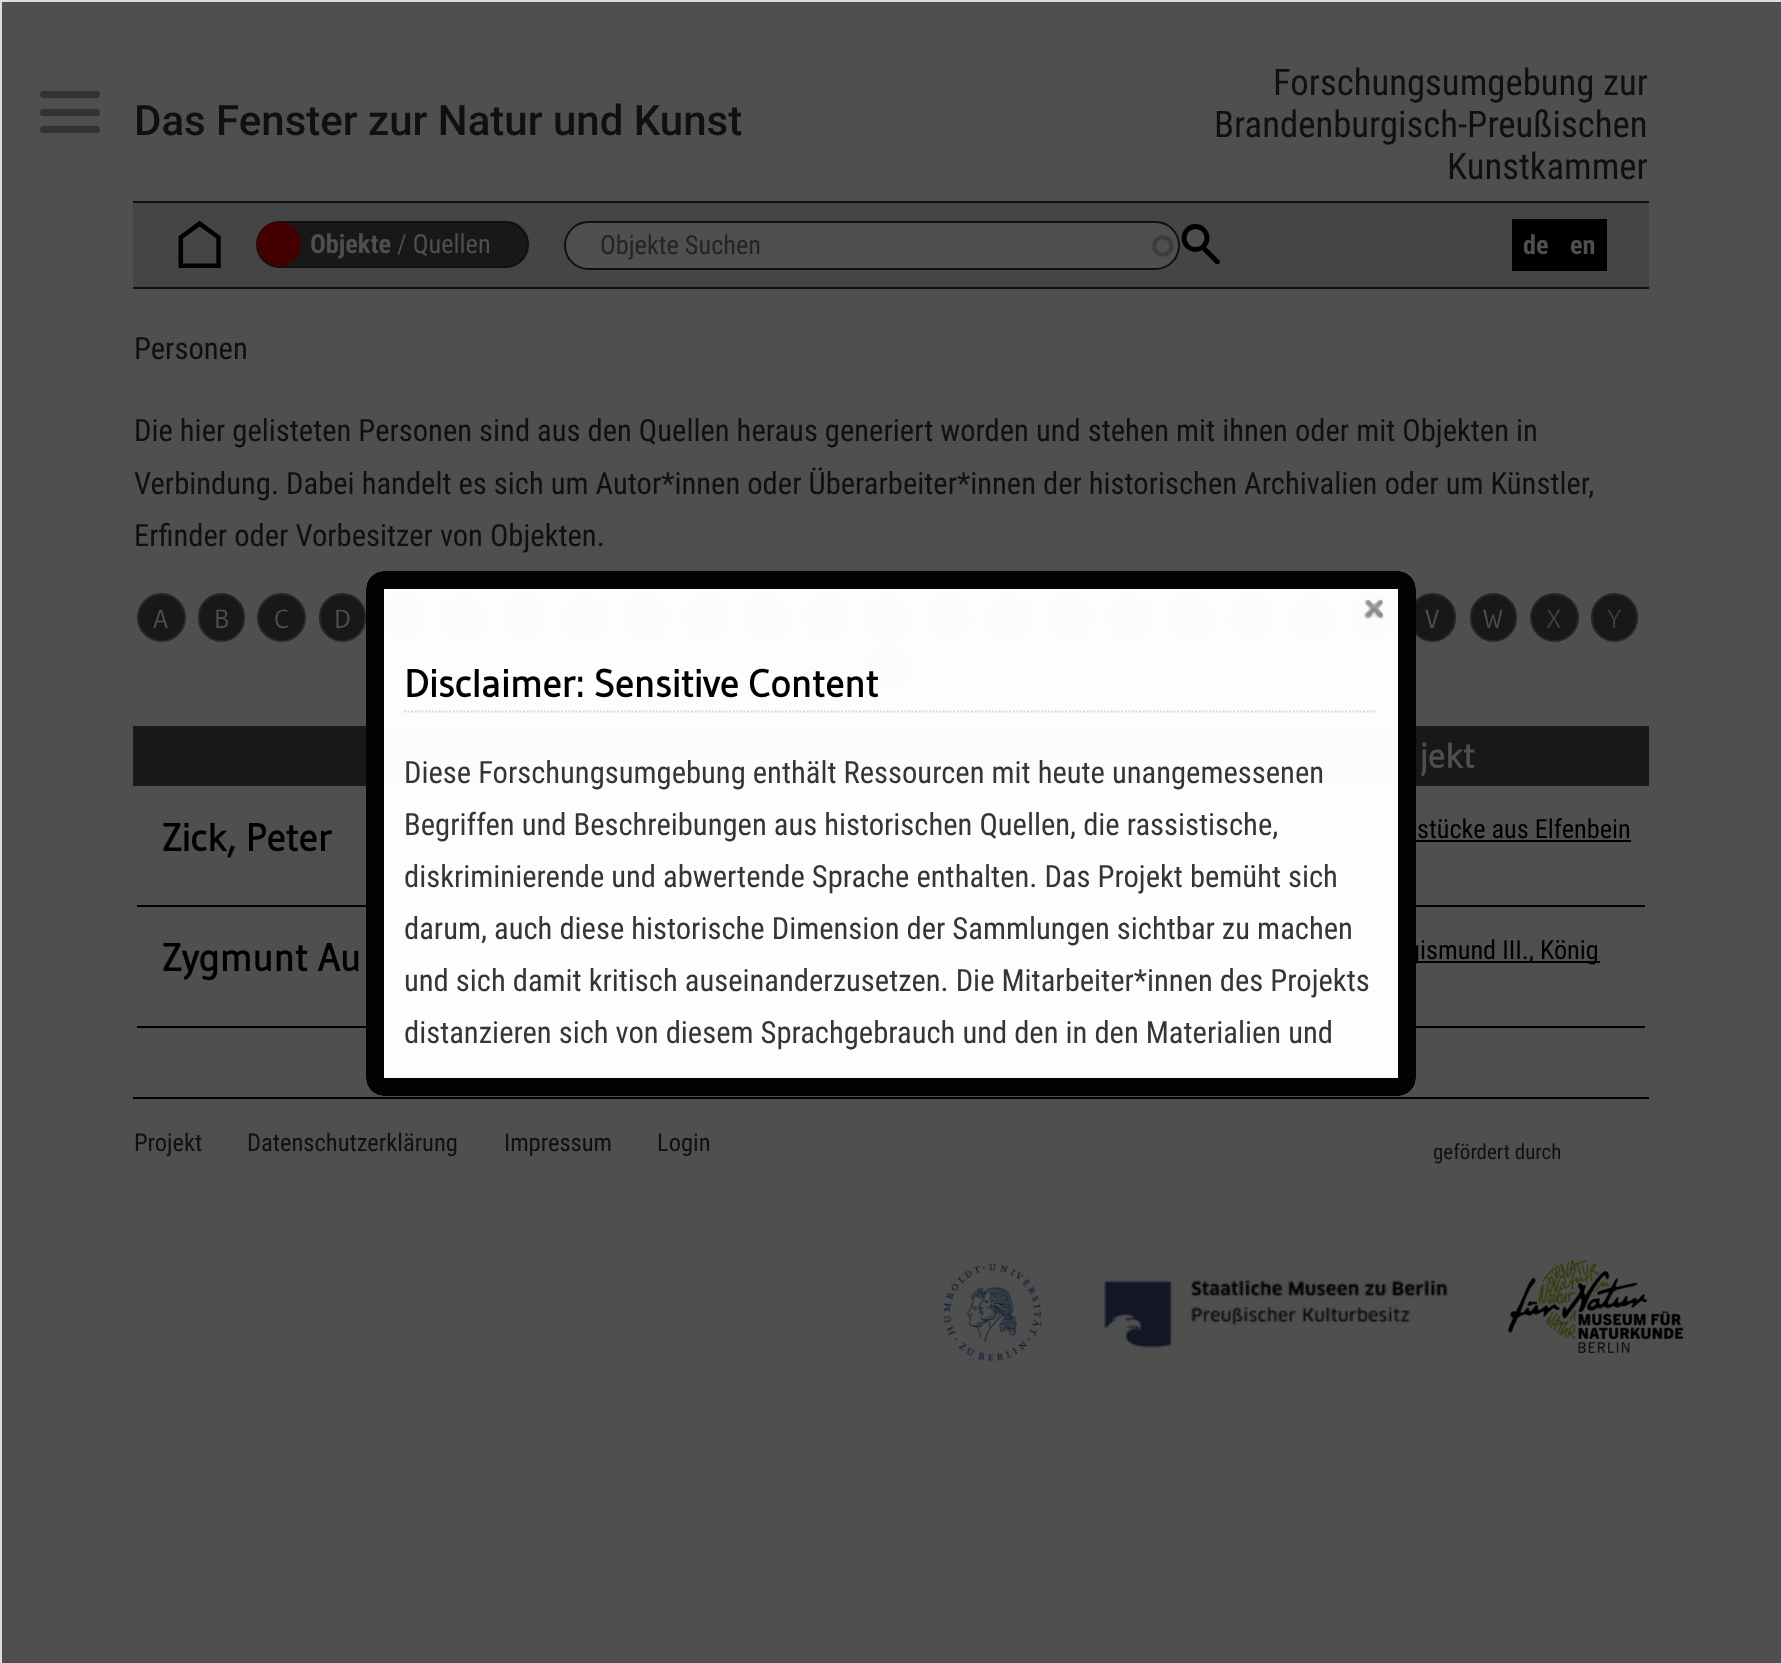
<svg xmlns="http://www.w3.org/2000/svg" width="1781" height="1663">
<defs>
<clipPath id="clip1"><rect x="1181" y="224" width="39" height="40"/></clipPath>
</defs>
<rect width="100%" height="100%" fill="#4f4f4f"/>
<rect x="133" y="203" width="1516" height="84" fill="#454545"/>
<rect x="133" y="201" width="1516" height="2" fill="#101010"/>
<rect x="133" y="287" width="1516" height="2" fill="#101010"/>
<rect x="257" y="222" width="271" height="45" rx="22.5" fill="#181818" stroke="#101010" stroke-width="2"/>
<rect x="257" y="222" width="44" height="44" rx="21" fill="#430000"/>
<rect x="564" y="221" width="616" height="49" rx="24.5" fill="#4f4f4f"/>
<image x="1151" y="234" width="24" height="24" href="media/1.png"/>
<rect x="565" y="222" width="614" height="47" rx="23.5" fill="none" stroke="#101010" stroke-width="2"/>
<circle cx="1195.5" cy="238" r="11.5" fill="#4f4f4f" stroke="#000" stroke-width="4.9"/>
<g clip-path="url(#clip1)">
<path d="M1204.5 249l13 13" fill="none" stroke="#000" stroke-width="4.9" stroke-linecap="round"/>
</g>
<rect x="1512" y="219" width="95" height="52" fill="#000"/>
<circle cx="161.5" cy="617.5" r="23.5" fill="#181818" stroke="#262626" stroke-width="2"/>
<rect x="199" y="594" width="45" height="47" rx="22.5" fill="#181818" stroke="#262626" stroke-width="2"/>
<circle cx="281.5" cy="617.5" r="23.5" fill="#181818" stroke="#262626" stroke-width="2"/>
<rect x="320" y="594" width="45" height="47" rx="22.5" fill="#181818" stroke="#262626" stroke-width="2"/>
<rect x="381" y="594" width="45" height="47" rx="22.5" fill="#181818" stroke="#262626" stroke-width="2"/>
<circle cx="463.5" cy="617.5" r="23.5" fill="#181818" stroke="#262626" stroke-width="2"/>
<rect x="502" y="594" width="45" height="47" rx="22.5" fill="#181818" stroke="#262626" stroke-width="2"/>
<circle cx="584.5" cy="617.5" r="23.5" fill="#181818" stroke="#262626" stroke-width="2"/>
<rect x="622" y="594" width="46" height="47" rx="23" fill="#181818" stroke="#262626" stroke-width="2"/>
<rect x="684" y="594" width="45" height="47" rx="22.5" fill="#181818" stroke="#262626" stroke-width="2"/>
<circle cx="766.5" cy="617.5" r="23.5" fill="#181818" stroke="#262626" stroke-width="2"/>
<rect x="804" y="594" width="46" height="47" rx="23" fill="#181818" stroke="#262626" stroke-width="2"/>
<circle cx="887.5" cy="617.5" r="23.5" fill="#181818" stroke="#262626" stroke-width="2"/>
<circle cx="948.5" cy="617.5" r="23.5" fill="#181818" stroke="#262626" stroke-width="2"/>
<rect x="986" y="594" width="46" height="47" rx="23" fill="#181818" stroke="#262626" stroke-width="2"/>
<circle cx="1069.5" cy="617.5" r="23.5" fill="#181818" stroke="#262626" stroke-width="2"/>
<rect x="1107" y="594" width="45" height="47" rx="22.5" fill="#181818" stroke="#262626" stroke-width="2"/>
<circle cx="1190.5" cy="617.5" r="23.5" fill="#181818" stroke="#262626" stroke-width="2"/>
<circle cx="1251.5" cy="617.5" r="23.5" fill="#181818" stroke="#262626" stroke-width="2"/>
<rect x="1289" y="594" width="45" height="47" rx="22.5" fill="#181818" stroke="#262626" stroke-width="2"/>
<circle cx="1372.5" cy="617.5" r="23.5" fill="#181818" stroke="#262626" stroke-width="2"/>
<rect x="1410" y="594" width="45" height="47" rx="22.5" fill="#181818" stroke="#262626" stroke-width="2"/>
<rect x="1471" y="594" width="45" height="47" rx="22.5" fill="#181818" stroke="#262626" stroke-width="2"/>
<circle cx="1554.5" cy="617.5" r="23.5" fill="#181818" stroke="#262626" stroke-width="2"/>
<rect x="1592" y="594" width="45" height="47" rx="22.5" fill="#181818" stroke="#262626" stroke-width="2"/>
<circle cx="887.5" cy="666.5" r="23.5" fill="#181818" stroke="#262626" stroke-width="2"/>
<rect x="133" y="726" width="1516" height="60" fill="#181818"/>
<rect x="137" y="905" width="1508" height="2" fill="#000"/>
<rect x="1244" y="840" width="387" height="2" fill="#000"/>
<rect x="1244" y="872" width="147" height="2" fill="#000"/>
<rect x="137" y="1026" width="1508" height="2" fill="#000"/>
<rect x="1244" y="961" width="356" height="2" fill="#000"/>
<rect x="1244" y="992" width="102" height="2" fill="#000"/>
<rect x="133" y="1097" width="1516" height="2" fill="#000"/>
<image x="943" y="1263" width="99" height="99" href="media/2.png"/>
<image x="1103" y="1279" width="345" height="69" href="media/3.png"/>
<image x="1508" y="1260" width="176" height="93" href="media/4.png"/>
<rect x="1" y="1" width="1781" height="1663" fill="none" stroke="#ddd" stroke-width="2"/>
<rect x="40" y="91" width="60" height="7" rx="3.5" fill="#333"/>
<rect x="40" y="109" width="60" height="7" rx="3.5" fill="#333"/>
<rect x="40" y="126" width="60" height="7" rx="3.5" fill="#333"/>
<text x="134" y="135" style="font-family:Roboto;font-size:42px;font-weight:500;fill:#101010">Das Fenster zur Natur und Kunst</text>
<text x="1273" y="95" style="font-family:Roboto Condensed;font-size:36.75px;fill:#101010">Forschungsumgebung zur</text>
<text x="1214" y="137" style="font-family:Roboto Condensed;font-size:36.75px;fill:#101010">Brandenburgisch-Preußischen</text>
<text x="1447" y="179" style="font-family:Roboto Condensed;font-size:36.75px;fill:#101010">Kunstkammer</text>
<text x="169" y="268" style="font-family:Carlito;font-size:70px;fill:#000">⌂</text>
<text x="310" y="253" style="font-family:Roboto Condensed;font-size:26.25px;font-weight:bold;fill:#4f4f4f">Objekte</text>
<text x="397" y="253" style="font-family:Roboto Condensed;font-size:26.25px;fill:#4f4f4f">/ Quellen</text>
<text x="600" y="254" style="font-family:Roboto Condensed;font-size:26.25px;fill:#242424">Objekte Suchen</text>
<text x="1523" y="254" style="font-family:Roboto Condensed;font-size:26.25px;font-weight:bold;fill:#4f4f4f">de</text>
<text x="1570" y="254" style="font-family:Roboto Condensed;font-size:26.25px;font-weight:bold;fill:#4f4f4f">en</text>
<text x="134" y="359" style="font-family:Roboto Condensed;font-size:30.6px;fill:#101010">Personen</text>
<text x="134" y="441" style="font-family:Roboto Condensed;font-size:30.6px;fill:#101010">Die hier gelisteten Personen sind aus den Quellen heraus generiert worden und stehen mit ihnen oder mit Objekten in</text>
<text x="134" y="494" style="font-family:Roboto Condensed;font-size:30.6px;fill:#101010">Verbindung. Dabei handelt es sich um Autor*innen oder Überarbeiter*innen der historischen Archivalien oder um Künstler,</text>
<text x="134" y="546" style="font-family:Roboto Condensed;font-size:30.6px;fill:#101010">Erfinder oder Vorbesitzer von Objekten.</text>
<text x="153" y="628" style="font-family:Gudea;font-size:26.25px;fill:#4f4f4f">A</text>
<text x="214" y="628" style="font-family:Gudea;font-size:26.25px;fill:#4f4f4f">B</text>
<text x="274" y="628" style="font-family:Gudea;font-size:26.25px;fill:#4f4f4f">C</text>
<text x="334" y="628" style="font-family:Gudea;font-size:26.25px;fill:#4f4f4f">D</text>
<text x="1425" y="628" style="font-family:Gudea;font-size:26.25px;fill:#4f4f4f">V</text>
<text x="1483" y="628" style="font-family:Gudea;font-size:26.25px;fill:#4f4f4f">W</text>
<text x="1546" y="628" style="font-family:Gudea;font-size:26.25px;fill:#3f3f3f">X</text>
<text x="1607" y="628" style="font-family:Gudea;font-size:26.25px;fill:#3f3f3f">Y</text>
<text x="1420" y="768" style="font-family:Gudea;font-size:35px;font-weight:bold;fill:#4f4f4f">jekt</text>
<text x="162" y="851" style="font-family:Gudea;font-size:38.5px;font-weight:bold;fill:#000">Zick, Peter</text>
<text x="1417" y="838" style="font-family:Roboto Condensed;font-size:26.25px;fill:#000">stücke aus Elfenbein</text>
<text x="162" y="971" style="font-family:Gudea;font-size:38.5px;font-weight:bold;fill:#000">Zygmunt Au</text>
<text x="1407" y="959" style="font-family:Roboto Condensed;font-size:26.25px;fill:#000">gismund III., König</text>
<text x="134" y="1151" style="font-family:Roboto Condensed;font-size:24.5px;fill:#101010">Projekt</text>
<text x="247" y="1151" style="font-family:Roboto Condensed;font-size:24.5px;fill:#101010">Datenschutzerklärung</text>
<text x="504" y="1151" style="font-family:Roboto Condensed;font-size:24.5px;fill:#101010">Impressum</text>
<text x="657" y="1151" style="font-family:Roboto Condensed;font-size:24.5px;fill:#101010">Login</text>
<text x="1433" y="1159" style="font-family:Roboto Condensed;font-size:21px;fill:#101010">gefördert durch</text>
<rect x="366" y="571" width="1050" height="525" rx="18" fill="#fffffffc"/>
<rect x="375" y="580" width="1032" height="507" rx="9" fill="none" stroke="#000000fc" stroke-width="18"/>
<image x="1364" y="599" width="21" height="20" href="media/5.png"/>
<path d="M404 711.5h973" fill="none" stroke="#d3d3d3" stroke-width="1.8" stroke-dasharray="1.75 1.75"/>
<text x="404" y="697" style="font-family:Gudea;font-size:38.5px;font-weight:bold;fill:#000">Disclaimer: Sensitive Content</text>
<text x="404" y="783" style="font-family:Roboto Condensed;font-size:30.6px;fill:#353535">Diese Forschungsumgebung enthält Ressourcen mit heute unangemessenen</text>
<text x="404" y="835" style="font-family:Roboto Condensed;font-size:30.6px;fill:#353535">Begriffen und Beschreibungen aus historischen Quellen, die rassistische,</text>
<text x="404" y="887" style="font-family:Roboto Condensed;font-size:30.6px;fill:#353535">diskriminierende und abwertende Sprache enthalten. Das Projekt bemüht sich</text>
<text x="404" y="939" style="font-family:Roboto Condensed;font-size:30.6px;fill:#353535">darum, auch diese historische Dimension der Sammlungen sichtbar zu machen</text>
<text x="404" y="991" style="font-family:Roboto Condensed;font-size:30.6px;fill:#353535">und sich damit kritisch auseinanderzusetzen. Die Mitarbeiter*innen des Projekts</text>
<text x="404" y="1043" style="font-family:Roboto Condensed;font-size:30.6px;fill:#353535">distanzieren sich von diesem Sprachgebrauch und den in den Materialien und</text>
</svg>
